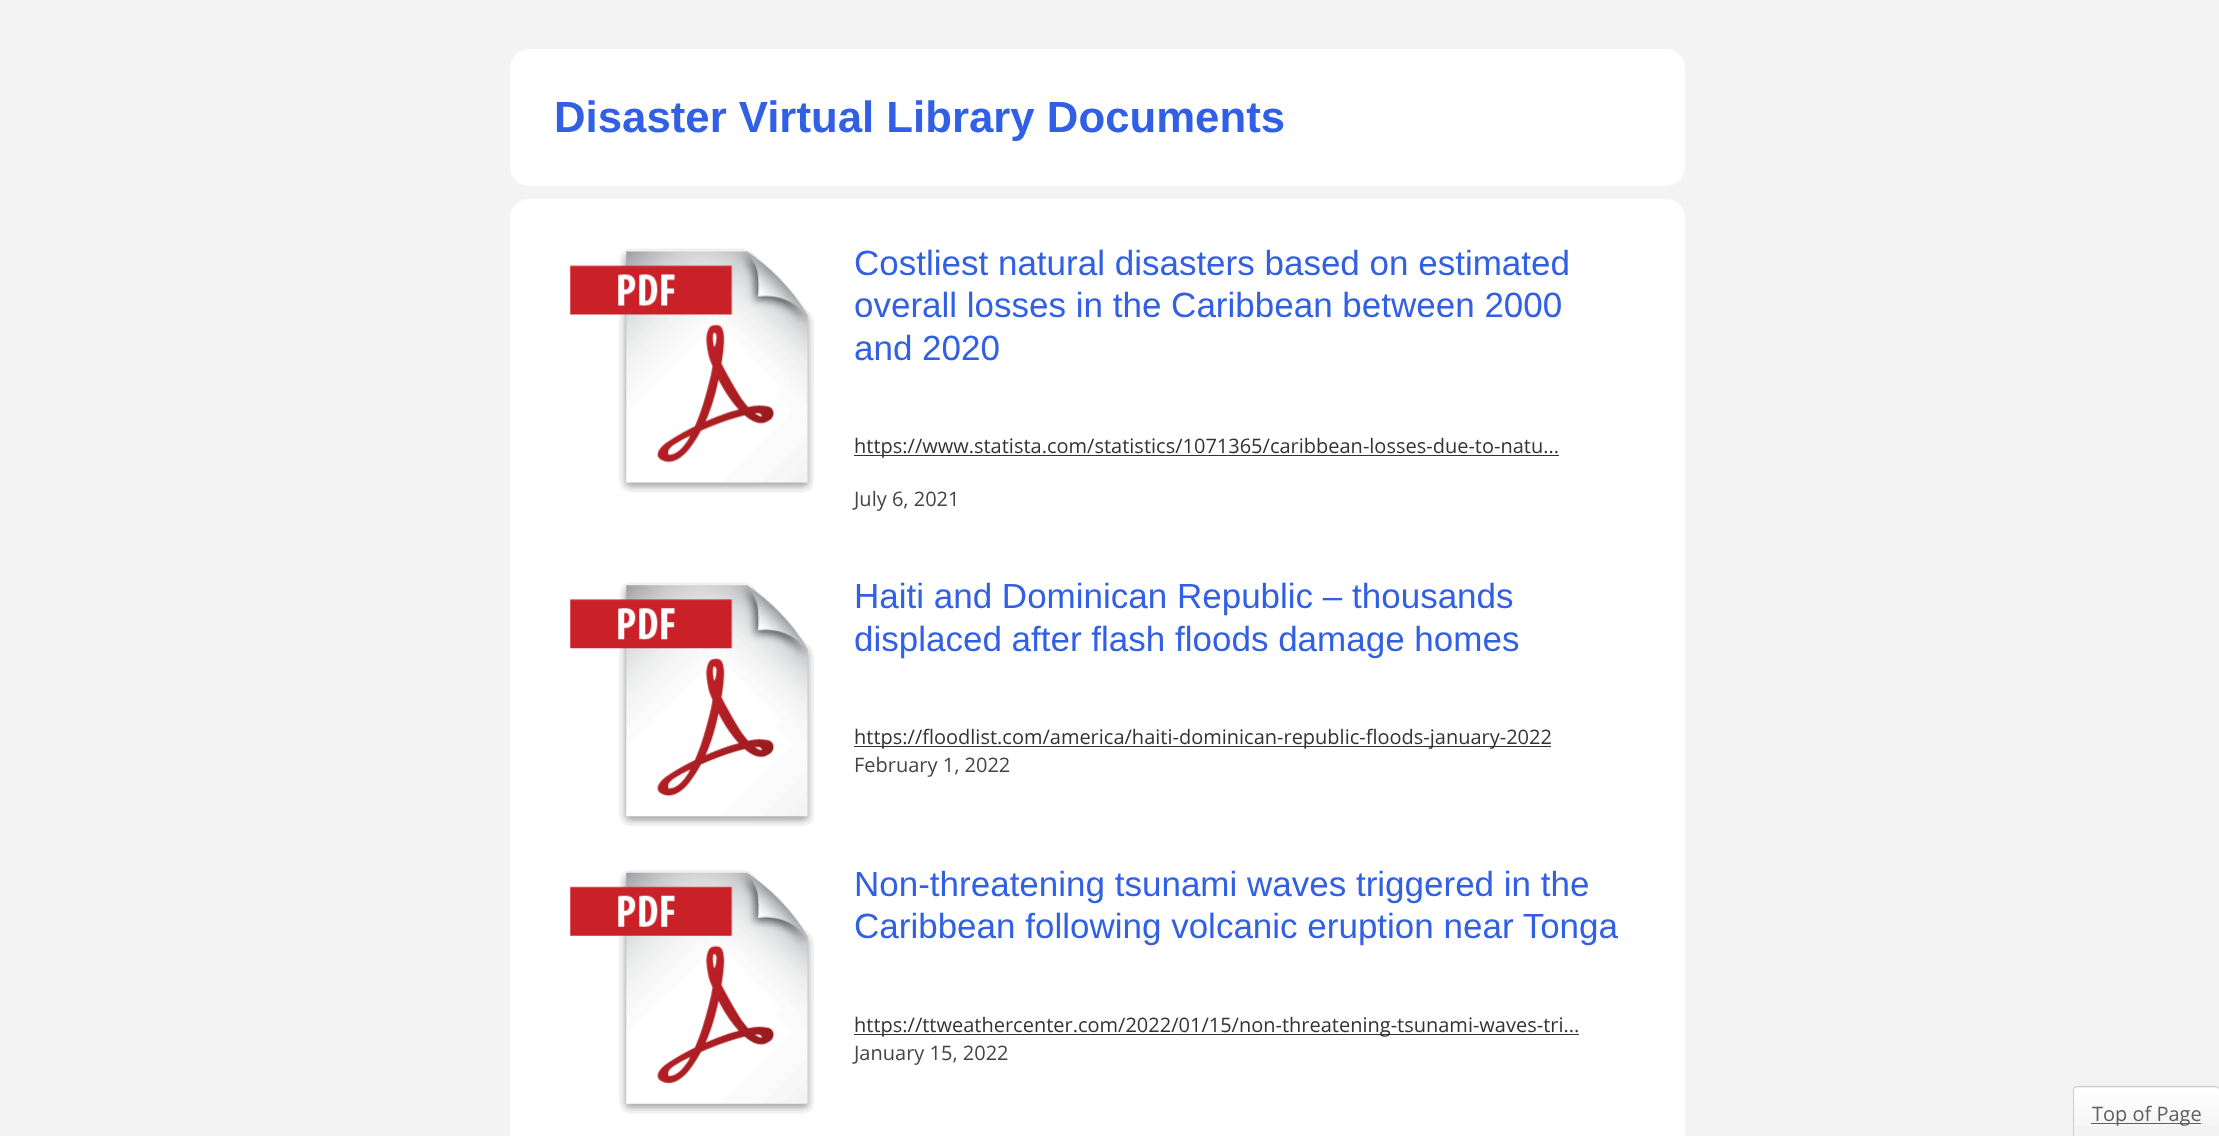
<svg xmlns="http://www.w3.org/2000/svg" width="2219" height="1136">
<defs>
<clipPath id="clip1"><rect x="2073" y="1086" width="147" height="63" rx="4"/></clipPath>
<linearGradient id="g1" gradientUnits="userSpaceOnUse" x1="2146" y1="1028" x2="2146" y2="1088"><stop offset="0" stop-color="#fff"/><stop offset="1" stop-color="#f0f0f0"/></linearGradient>
<linearGradient id="g2" gradientUnits="userSpaceOnUse" x1="2146" y1="1088" x2="2146" y2="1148"><stop offset="0" stop-color="#fff"/><stop offset="1" stop-color="#f0f0f0"/></linearGradient>
</defs>
<rect width="100%" height="100%" fill="#f3f3f3"/>
<rect x="510" y="49" width="1175" height="137" rx="19" fill="#fff"/>
<text x="554" y="132" style="font-family:Liberation Sans;font-size:43.75px;font-weight:bold;fill:#3160e5">Disaster Virtual Library Documents</text>
<rect x="510" y="199" width="1175" height="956" rx="19" fill="#fff"/>
<image x="570" y="248" width="244" height="245" href="media/1.png"/>
<text x="854" y="275" style="font-family:Liberation Sans;font-size:35px;fill:#3160e5">Costliest natural disasters based on estimated</text>
<text x="854" y="317" style="font-family:Liberation Sans;font-size:35px;fill:#3160e5">overall losses in the Caribbean between 2000</text>
<text x="854" y="360" style="font-family:Liberation Sans;font-size:35px;fill:#3160e5">and 2020</text>
<rect x="854" y="455" width="705" height="1" fill="#333"/>
<text x="854" y="453" style="font-family:Open Sans;font-size:20px;fill:#333">https://www.statista.com/statistics/1071365/caribbean-losses-due-to-natu...</text>
<text x="854" y="506" style="font-family:Open Sans;font-size:20px;fill:#444">July 6, 2021</text>
<image x="570" y="582" width="244" height="244" href="media/2.png"/>
<text x="854" y="608" style="font-family:Liberation Sans;font-size:35px;fill:#3160e5">Haiti and Dominican Republic – thousands</text>
<text x="854" y="651" style="font-family:Liberation Sans;font-size:35px;fill:#3160e5">displaced after flash floods damage homes</text>
<rect x="854" y="746" width="697" height="1" fill="#333"/>
<text x="854" y="744" style="font-family:Open Sans;font-size:20px;fill:#333">https://floodlist.com/america/haiti-dominican-republic-floods-january-2022</text>
<text x="854" y="772" style="font-family:Open Sans;font-size:20px;fill:#444">February 1, 2022</text>
<image x="570" y="870" width="244" height="244" href="media/3.png"/>
<text x="854" y="896" style="font-family:Liberation Sans;font-size:35px;fill:#3160e5">Non-threatening tsunami waves triggered in the</text>
<text x="854" y="938" style="font-family:Liberation Sans;font-size:35px;fill:#3160e5">Caribbean following volcanic eruption near Tonga</text>
<rect x="854" y="1034" width="725" height="1" fill="#333"/>
<text x="854" y="1032" style="font-family:Open Sans;font-size:20px;fill:#333">https://ttweathercenter.com/2022/01/15/non-threatening-tsunami-waves-tri...</text>
<text x="854" y="1060" style="font-family:Open Sans;font-size:20px;fill:#444">January 15, 2022</text>
<g clip-path="url(#clip1)">
<rect x="2073" y="1086" width="146" height="2" fill="url(#g1)"/>
</g>
<rect x="2073" y="1088" width="146" height="38" fill="url(#g2)"/>
<rect x="2073.5" y="1086.5" width="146" height="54" rx="3.5" fill="none" stroke="#ccc"/>
<rect x="2091" y="1123" width="110" height="1" fill="#5f5f5f"/>
<text x="2092" y="1121" style="font-family:Open Sans;font-size:20px;fill:#5f5f5f">Top of Page</text>
</svg>
